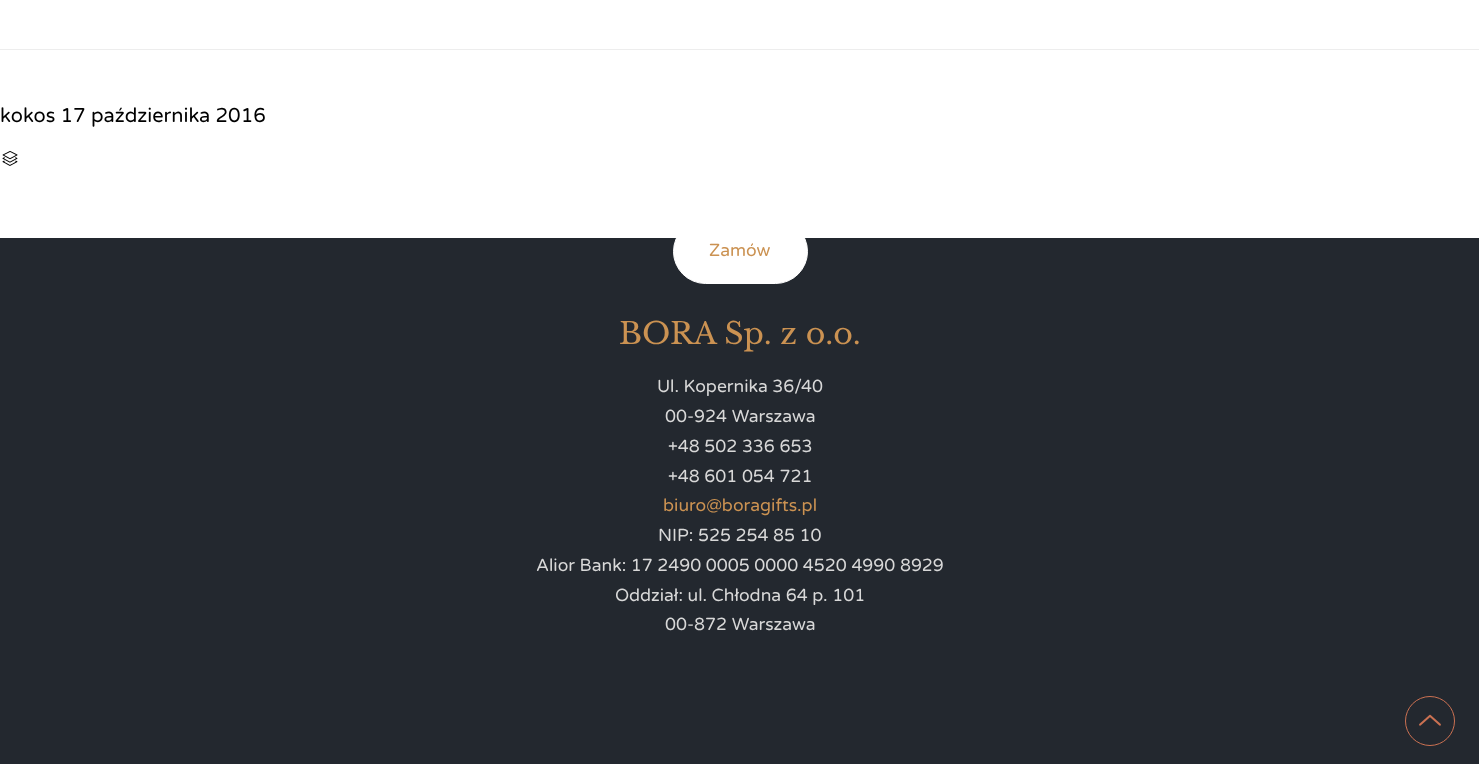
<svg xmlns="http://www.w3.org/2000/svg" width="1479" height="764">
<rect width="100%" height="100%" fill="#23282f"/>
<rect x="673.5" y="219.5" width="134" height="64" rx="32" fill="#fff" stroke="#fff"/>
<rect width="1479" height="238" fill="#fff"/>
<rect y="49" width="1479" height="1" fill="#ededed"/>
<text x="0" y="122" style="font-family:Varela Round;font-size:20px;fill:#000">kokos 17 października 2016</text>
<image x="2" y="151" width="16" height="15" href="media/1.png"/>
<text x="709" y="256" style="font-family:Varela Round;font-size:17.5px;fill:#cb9252">Zamów</text>
<text x="619" y="344" style="font-family:Libre Baskerville;font-size:30px;fill:#cb9252">BORA Sp. z o.o.</text>
<text x="657" y="392" style="font-family:Varela Round;font-size:17.5px;fill:#d8d8d8">Ul. Kopernika 36/40</text>
<text x="665" y="422" style="font-family:Varela Round;font-size:17.5px;fill:#d8d8d8">00-924 Warszawa</text>
<text x="668" y="452" style="font-family:Varela Round;font-size:17.5px;fill:#d8d8d8">+48 502 336 653</text>
<text x="668" y="482" style="font-family:Varela Round;font-size:17.5px;fill:#d8d8d8">+48 601 054 721</text>
<text x="663" y="511" style="font-family:Varela Round;font-size:17.5px;fill:#cb9252">biuro@boragifts.pl</text>
<text x="658" y="541" style="font-family:Varela Round;font-size:17.5px;fill:#d8d8d8">NIP: 525 254 85 10</text>
<text x="536" y="571" style="font-family:Varela Round;font-size:17.5px;fill:#d8d8d8">Alior Bank: 17 2490 0005 0000 4520 4990 8929</text>
<text x="615" y="601" style="font-family:Varela Round;font-size:17.5px;fill:#d8d8d8">Oddział: ul. Chłodna 64 p. 101</text>
<text x="665" y="630" style="font-family:Varela Round;font-size:17.5px;fill:#d8d8d8">00-872 Warszawa</text>
<circle cx="1430" cy="721" r="24.5" fill="none" stroke="#cb7152"/>
<image x="1419" y="714" width="22" height="12" href="media/2.png"/>
</svg>
